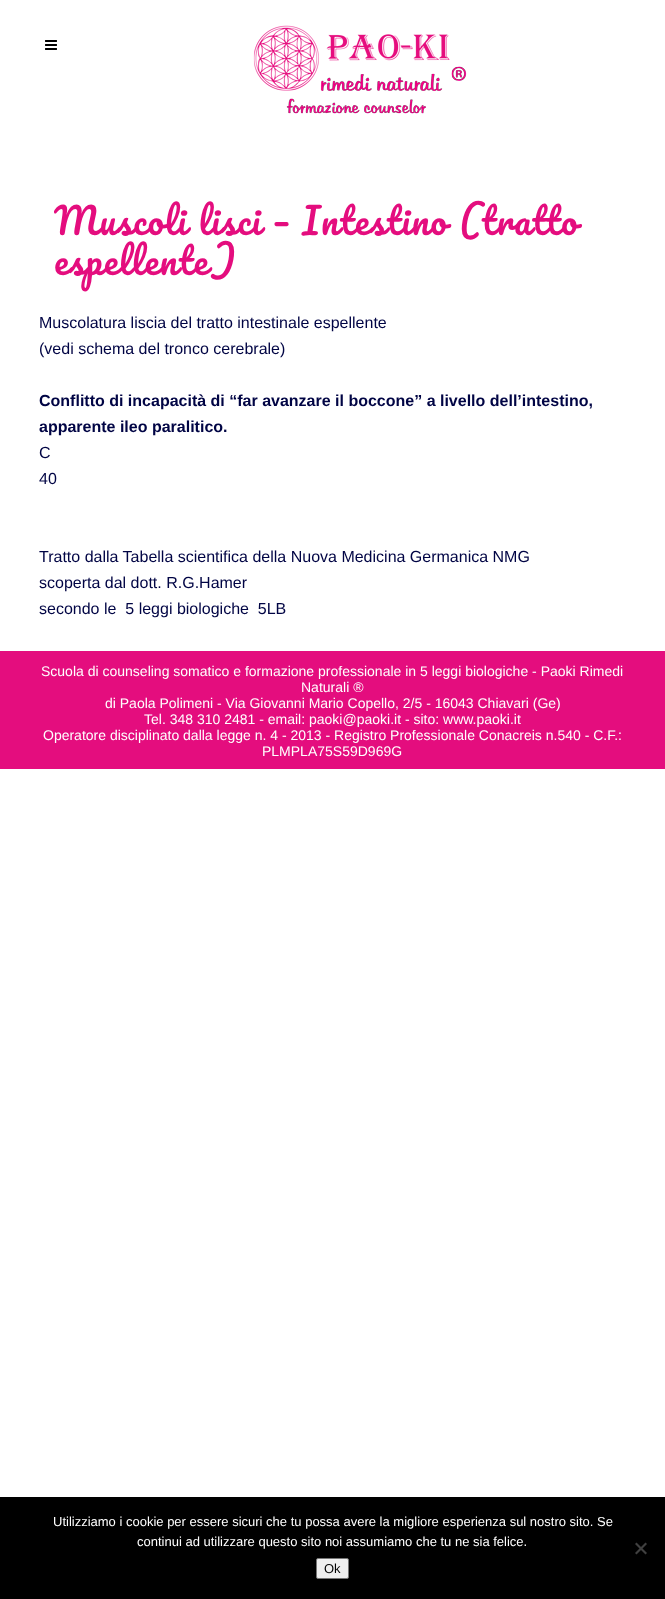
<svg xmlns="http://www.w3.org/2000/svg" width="665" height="1599">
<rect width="100%" height="100%" fill="#fff"/>
<image x="45" y="40" width="12" height="10" href="media/1.png"/>
<image x="253" y="25" width="214" height="89" href="media/2.png"/>
<text x="54" y="235" word-spacing="0.5" style="font-family:Pacifico;font-size:36px;letter-spacing:1px;fill:#e40d7e">Muscoli lisci – Intestino (tratto</text>
<text x="54" y="275" style="font-family:Pacifico;font-size:36px;letter-spacing:1px;fill:#e40d7e">espellente)</text>
<text x="39" y="328" style="font-family:Liberation Sans;font-size:16px;fill:#000444">Muscolatura liscia del tratto intestinale espellente</text>
<text x="39" y="354" style="font-family:Liberation Sans;font-size:16px;fill:#000444">(vedi schema del tronco cerebrale)</text>
<text x="39" y="406" style="font-family:Liberation Sans;font-size:16px;font-weight:bold;fill:#000444">Conflitto di incapacità di “far avanzare il boccone” a livello dell’intestino,</text>
<text x="39" y="432" style="font-family:Liberation Sans;font-size:16px;font-weight:bold;fill:#000444">apparente ileo paralitico.</text>
<text x="39" y="458" style="font-family:Liberation Sans;font-size:16px;fill:#000444">C</text>
<text x="39" y="484" style="font-family:Liberation Sans;font-size:16px;fill:#000444">40</text>
<text x="39" y="562" style="font-family:Liberation Sans;font-size:16px;fill:#000444">Tratto dalla Tabella scientifica della Nuova Medicina Germanica NMG</text>
<text x="39" y="588" style="font-family:Liberation Sans;font-size:16px;fill:#000444">scoperta dal dott. R.G.Hamer</text>
<text x="39" y="614" style="font-family:Liberation Sans;font-size:16px;fill:#000444" xml:space="preserve">secondo le  5 leggi biologiche  5LB</text>
<rect y="651" width="665" height="118" fill="#e40d7e"/>
<text x="41" y="676" style="font-family:Liberation Sans;font-size:14px;fill:#fff">Scuola di counseling somatico e formazione professionale in 5 leggi biologiche - Paoki Rimedi</text>
<text x="301" y="692" style="font-family:Liberation Sans;font-size:14px;fill:#fff">Naturali ®</text>
<text x="105" y="708" style="font-family:Liberation Sans;font-size:14px;fill:#fff">di Paola Polimeni - Via Giovanni Mario Copello, 2/5 - 16043 Chiavari (Ge)</text>
<text x="144" y="724" style="font-family:Liberation Sans;font-size:14px;fill:#fff">Tel. 348 310 2481 - email: paoki@paoki.it - sito: www.paoki.it</text>
<text x="43" y="740" style="font-family:Liberation Sans;font-size:14px;fill:#fff">Operatore disciplinato dalla legge n. 4 - 2013 - Registro Professionale Conacreis n.540 - C.F.:</text>
<text x="262" y="756" style="font-family:Liberation Sans;font-size:14px;fill:#fff">PLMPLA75S59D969G</text>
<rect y="1497" width="665" height="102" fill="#000"/>
<text x="53" y="1526" style="font-family:Liberation Sans;font-size:13px;fill:#fff">Utilizziamo i cookie per essere sicuri che tu possa avere la migliore esperienza sul nostro sito. Se</text>
<text x="137" y="1546" style="font-family:Liberation Sans;font-size:13px;fill:#fff">continui ad utilizzare questo sito noi assumiamo che tu ne sia felice.</text>
<path d="M645.5 1542.5l1.5 1.5l-10.5 10.5l-1.5-1.5z" fill="#404040"/>
<path d="M635 1544l1.5-1.5l10.5 10.5l-1.5 1.5z" fill="#404040"/>
<rect x="316.5" y="1558.5" width="32" height="20" rx="1.5" fill="#efefef" stroke="#767676"/>
<text x="324" y="1573" style="font-family:Liberation Sans;font-size:13px;fill:#000">Ok</text>
</svg>
